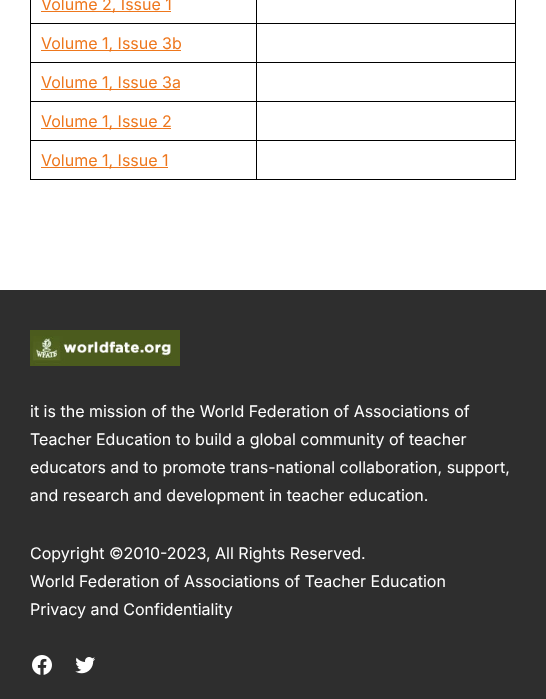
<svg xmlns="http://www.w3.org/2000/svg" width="546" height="699">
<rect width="100%" height="100%" fill="#fff"/>
<rect x="41" y="11" width="130" height="1" fill="#ee771d"/>
<text x="41" y="10" style="font-family:Inter;font-size:16px;fill:#ee771d">Volume 2, Issue 1</text>
<rect x="30" y="23" width="486" height="1" fill="#000"/>
<rect x="30" y="62" width="486" height="1" fill="#000"/>
<rect x="30" y="101" width="486" height="1" fill="#000"/>
<rect x="30" y="140" width="486" height="1" fill="#000"/>
<rect x="515" y="140" width="1" height="40" fill="#000"/>
<rect x="515" y="101" width="1" height="40" fill="#000"/>
<rect x="515" y="62" width="1" height="40" fill="#000"/>
<rect x="515" width="1" height="63" fill="#000"/>
<rect x="30" y="179" width="486" height="1" fill="#000"/>
<rect x="30" y="140" width="1" height="40" fill="#000"/>
<rect x="30" y="101" width="1" height="40" fill="#000"/>
<rect x="30" y="62" width="1" height="40" fill="#000"/>
<rect x="30" width="1" height="63" fill="#000"/>
<rect x="41" y="50" width="140" height="1" fill="#ee771d"/>
<text x="41" y="49" style="font-family:Inter;font-size:16px;fill:#ee771d">Volume 1, Issue 3b</text>
<rect x="41" y="89" width="139" height="1" fill="#ee771d"/>
<text x="41" y="88" style="font-family:Inter;font-size:16px;fill:#ee771d">Volume 1, Issue 3a</text>
<rect x="41" y="128" width="130" height="1" fill="#ee771d"/>
<text x="41" y="127" style="font-family:Inter;font-size:16px;fill:#ee771d">Volume 1, Issue 2</text>
<rect x="41" y="167" width="127" height="1" fill="#ee771d"/>
<text x="41" y="166" style="font-family:Inter;font-size:16px;fill:#ee771d">Volume 1, Issue 1</text>
<rect x="256" width="1" height="180" fill="#000"/>
<rect y="290" width="546" height="409" fill="#2e2e2e"/>
<image x="30" y="330" width="150" height="36" href="media/1.png"/>
<text x="30" y="417" style="font-family:Inter;font-size:16px;fill:#fff">it is the mission of the World Federation of Associations of</text>
<text x="30" y="445" style="font-family:Inter;font-size:16px;fill:#fff">Teacher Education to build a global community of teacher</text>
<text x="30" y="473" style="font-family:Inter;font-size:16px;fill:#fff">educators and to promote trans-national collaboration, support,</text>
<text x="30" y="501" style="font-family:Inter;font-size:16px;fill:#fff">and research and development in teacher education.</text>
<text x="30" y="559" style="font-family:Inter;font-size:16px;fill:#fff">Copyright ©2010-2023, All Rights Reserved.</text>
<text x="30" y="587" style="font-family:Inter;font-size:16px;fill:#fff">World Federation of Associations of Teacher Education</text>
<text x="30" y="615" style="font-family:Inter;font-size:16px;fill:#fff">Privacy and Confidentiality</text>
<image x="32" y="655" width="20" height="20" href="media/2.png"/>
<image x="75" y="657" width="20" height="17" href="media/3.png"/>
</svg>
